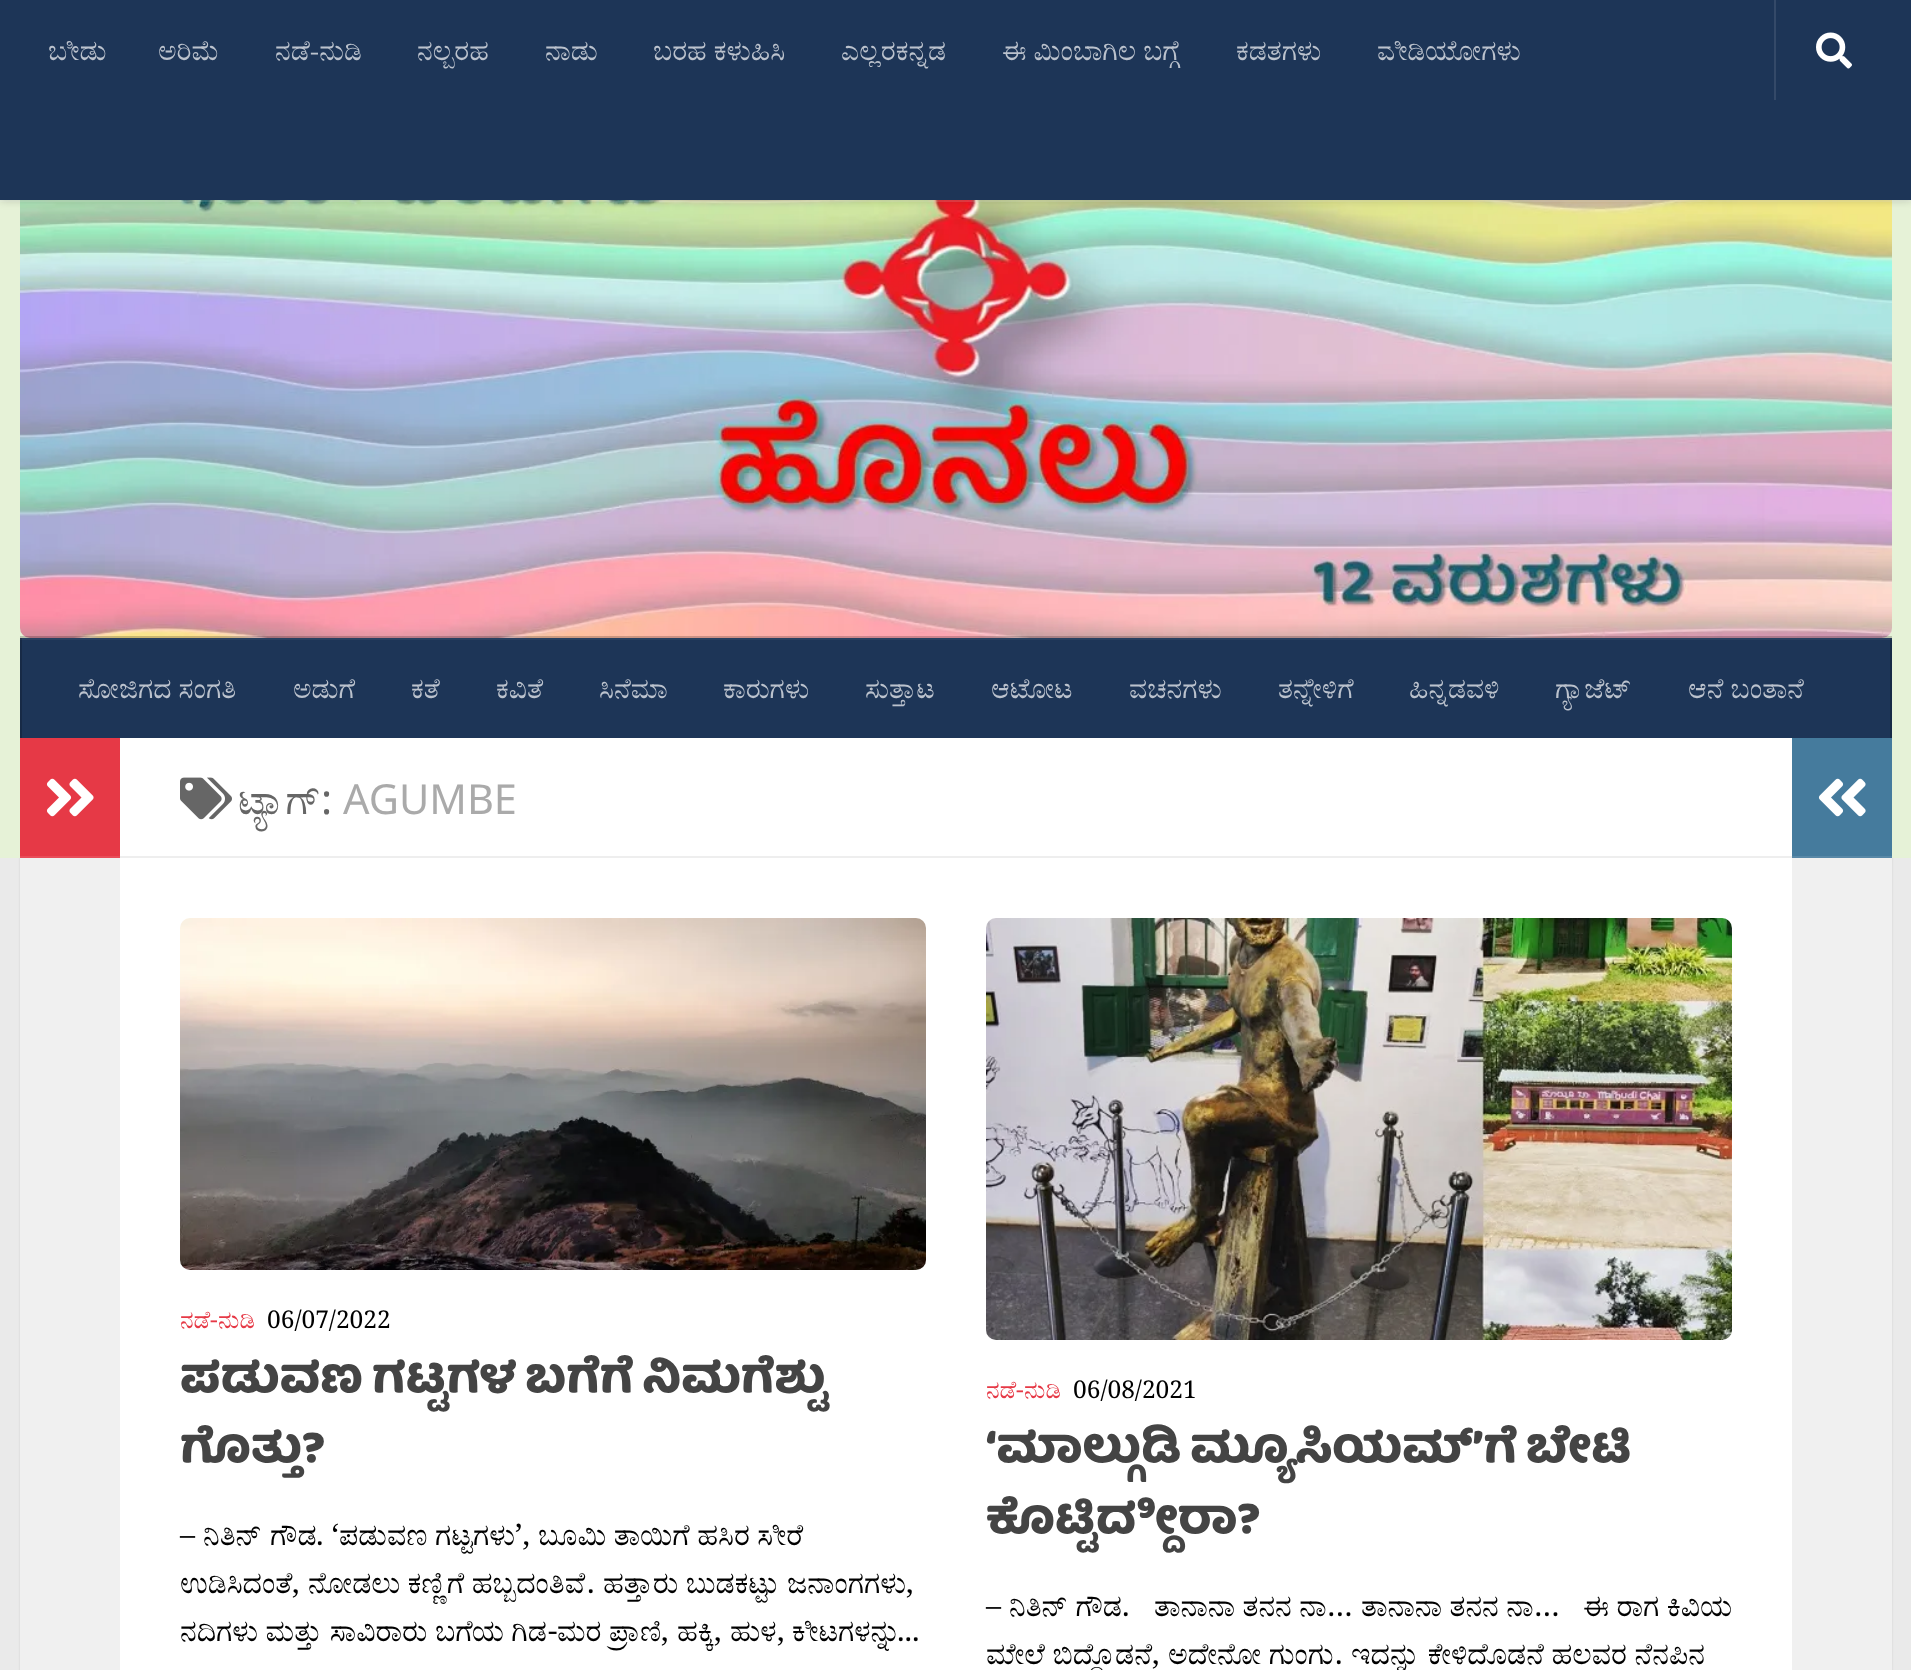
<svg xmlns="http://www.w3.org/2000/svg" width="1911" height="1670">
<rect width="100%" height="100%" fill="#eaeaea"/>
<rect x="20" y="740" width="1872" height="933" fill="#0000001a" filter="blur(1px)"/>
<rect y="200" width="1911" height="658" fill="#e6f2d7"/>
<image x="20" y="200" width="1872" height="438" href="media/2.png"/>
<rect y="200" width="1911" height="2" fill="#ffffff26"/>
<rect width="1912" height="200" fill="#00000033" filter="blur(5px)"/>
<rect width="1911" height="200" fill="#1d3557"/>
<text x="48" y="60" style="font-family:FreeSerif;font-size:28.25px;fill:#bbc2cd">ಬೀಡು</text>
<text x="158" y="60" style="font-family:FreeSerif;font-size:28.25px;fill:#bbc2cd">ಅರಿಮೆ</text>
<text x="275" y="60" style="font-family:FreeSerif;font-size:28.25px;fill:#bbc2cd">ನಡೆ-ನುಡಿ</text>
<text x="417" y="60" style="font-family:FreeSerif;font-size:28.25px;fill:#bbc2cd">ನಲ್ಬರಹ</text>
<text x="545" y="60" style="font-family:FreeSerif;font-size:28.25px;fill:#bbc2cd">ನಾಡು</text>
<text x="653" y="60" style="font-family:FreeSerif;font-size:28.25px;fill:#bbc2cd">ಬರಹ ಕಳುಹಿಸಿ</text>
<text x="841" y="60" style="font-family:FreeSerif;font-size:28.25px;fill:#bbc2cd">ಎಲ್ಲರಕನ್ನಡ</text>
<text x="1002" y="60" style="font-family:FreeSerif;font-size:28.25px;fill:#bbc2cd">ಈ ಮಿಂಬಾಗಿಲ ಬಗ್ಗೆ</text>
<text x="1236" y="60" style="font-family:FreeSerif;font-size:28.25px;fill:#bbc2cd">ಕಡತಗಳು</text>
<text x="1377" y="60" style="font-family:FreeSerif;font-size:28.25px;fill:#bbc2cd">ವೀಡಿಯೋಗಳು</text>
<rect x="1774" width="2" height="100" fill="#344968"/>
<image x="1816" y="32" width="36" height="37" href="media/1.png"/>
<rect x="20" y="636" width="1872" height="2" fill="#00000033"/>
<rect x="22" y="640" width="1868" height="98" fill="#1d3557"/>
<rect x="20" y="638" width="1872" height="2" fill="#283f5f"/>
<rect x="1890" y="638" width="2" height="100" fill="#172a46"/>
<rect x="1890" y="638" width="2" height="2" fill="#23354f"/>
<rect x="20" y="638" width="2" height="100" fill="#172a46"/>
<rect x="20" y="638" width="2" height="2" fill="#23354f"/>
<text x="78" y="698" style="font-family:FreeSerif;font-size:28.25px;fill:#bbc2cd">ಸೋಜಿಗದ ಸಂಗತಿ</text>
<text x="293" y="698" style="font-family:FreeSerif;font-size:28.25px;fill:#bbc2cd">ಅಡುಗೆ</text>
<text x="411" y="698" style="font-family:FreeSerif;font-size:28.25px;fill:#bbc2cd">ಕತೆ</text>
<text x="496" y="698" style="font-family:FreeSerif;font-size:28.25px;fill:#bbc2cd">ಕವಿತೆ</text>
<text x="599" y="698" style="font-family:FreeSerif;font-size:28.25px;fill:#bbc2cd">ಸಿನೆಮಾ</text>
<text x="723" y="698" style="font-family:FreeSerif;font-size:28.25px;fill:#bbc2cd">ಕಾರುಗಳು</text>
<text x="865" y="698" style="font-family:FreeSerif;font-size:28.25px;fill:#bbc2cd">ಸುತ್ತಾಟ</text>
<text x="991" y="698" style="font-family:FreeSerif;font-size:28.25px;fill:#bbc2cd">ಆಟೋಟ</text>
<text x="1129" y="698" style="font-family:FreeSerif;font-size:28.25px;fill:#bbc2cd">ವಚನಗಳು</text>
<text x="1278" y="698" style="font-family:FreeSerif;font-size:28.25px;fill:#bbc2cd">ತನ್ನೇಳಿಗೆ</text>
<text x="1409" y="698" style="font-family:FreeSerif;font-size:28.25px;fill:#bbc2cd">ಹಿನ್ನಡವಳಿ</text>
<text x="1555" y="698" style="font-family:FreeSerif;font-size:28.25px;fill:#bbc2cd">ಗ್ಯಾಜೆಟ್</text>
<text x="1688" y="698" style="font-family:FreeSerif;font-size:28.25px;fill:#bbc2cd">ಆನೆ ಬಂತಾನೆ</text>
<rect x="120" y="738" width="1672" height="932" fill="#fff"/>
<rect x="20" y="858" width="100" height="812" fill="#f0f0f0"/>
<rect x="20" y="738" width="100" height="118" fill="#e63946"/>
<rect x="20" y="856" width="100" height="2" fill="#e94d59"/>
<image x="46" y="778" width="48" height="39" href="media/3.png"/>
<rect x="120" y="856" width="1672" height="2" fill="#eee"/>
<image x="180" y="777" width="52" height="43" href="media/4.png"/>
<text x="238" y="814" style="font-family:FreeSerif;font-size:41.5px;fill:#666">ಟ್ಯಾಗ್</text>
<text x="321" y="814" style="font-family:Noto Sans;font-size:41.5px;fill:#666">:</text>
<text x="343" y="814" style="font-family:Noto Sans;font-size:41.5px;fill:#aaa">AGUMBE</text>
<image x="180" y="918" width="746" height="352" href="media/5.png"/>
<text x="180" y="1328" style="font-family:FreeSerif;font-size:24.5px;fill:#e63946">ನಡೆ</text>
<text x="210" y="1328" style="font-family:Noto Serif;font-size:24.5px;fill:#e63946">-</text>
<text x="218" y="1328" style="font-family:FreeSerif;font-size:24.5px;fill:#e63946">ನುಡಿ</text>
<text x="267" y="1328" style="font-family:Noto Serif;font-size:24.5px;fill:#000">06/07/2022</text>
<text x="180" y="1392" word-spacing="-2.5" style="font-family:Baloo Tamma;font-size:47.25px;fill:#444">ಪಡುವಣ ಗಟ್ಟಗಳ ಬಗೆಗೆ ನಿಮಗೆಶ್ಟು</text>
<text x="180" y="1462" style="font-family:Baloo Tamma;font-size:47.25px;fill:#444">ಗೊತ್ತು?</text>
<text x="180" y="1545" style="font-family:Noto Serif;font-size:30px;fill:#000">–</text>
<text x="203" y="1545" style="font-family:FreeSerif;font-size:30px;fill:#000">ನಿತಿನ್</text>
<text x="270" y="1545" style="font-family:FreeSerif;font-size:30px;fill:#000">ಗೌಡ</text>
<text x="316" y="1545" style="font-family:Noto Serif;font-size:30px;fill:#000">. ‘</text>
<text x="339" y="1545" style="font-family:FreeSerif;font-size:30px;fill:#000">ಪಡುವಣ</text>
<text x="435" y="1545" style="font-family:FreeSerif;font-size:30px;fill:#000">ಗಟ್ಟಗಳು</text>
<text x="515" y="1545" style="font-family:Noto Serif;font-size:30px;fill:#000">’,</text>
<text x="538" y="1545" style="font-family:FreeSerif;font-size:30px;fill:#000">ಬೂಮಿ ತಾಯಿಗೆ ಹಸಿರ ಸೀರೆ</text>
<text x="180" y="1593" style="font-family:FreeSerif;font-size:30px;fill:#000">ಉಡಿಸಿದಂತೆ</text>
<text x="292" y="1593" style="font-family:Noto Serif;font-size:30px;fill:#000">,</text>
<text x="308" y="1593" style="font-family:FreeSerif;font-size:30px;fill:#000">ನೋಡಲು ಕಣ್ಣಿಗೆ ಹಬ್ಬದಂತಿವೆ</text>
<text x="587" y="1593" style="font-family:Noto Serif;font-size:30px;fill:#000">.</text>
<text x="603" y="1593" style="font-family:FreeSerif;font-size:30px;fill:#000">ಹತ್ತಾರು ಬುಡಕಟ್ಟು ಜನಾಂಗಗಳು</text>
<text x="906" y="1593" style="font-family:Noto Serif;font-size:30px;fill:#000">,</text>
<text x="180" y="1641" style="font-family:FreeSerif;font-size:30px;fill:#000">ನದಿಗಳು ಮತ್ತು ಸಾವಿರಾರು ಬಗೆಯ ಗಿಡ</text>
<text x="548" y="1641" style="font-family:Noto Serif;font-size:30px;fill:#000">-</text>
<text x="557" y="1641" style="font-family:FreeSerif;font-size:30px;fill:#000">ಮರ ಪ್ರಾಣಿ</text>
<text x="677" y="1641" style="font-family:FreeSerif;font-size:30px;fill:#000">ಹಕ್ಕಿ</text>
<text x="730" y="1641" style="font-family:FreeSerif;font-size:30px;fill:#000">ಹುಳ</text>
<text x="792" y="1641" style="font-family:FreeSerif;font-size:30px;fill:#000">ಕೀಟಗಳನ್ನು</text>
<text x="661" y="1641" style="font-family:Noto Serif;font-size:30px;fill:#000">,</text>
<text x="714" y="1641" style="font-family:Noto Serif;font-size:30px;fill:#000">,</text>
<text x="777" y="1641" style="font-family:Noto Serif;font-size:30px;fill:#000">,</text>
<text x="897" y="1641" style="font-family:Noto Serif;font-size:30px;fill:#000">...</text>
<image x="986" y="918" width="746" height="422" href="media/6.png"/>
<text x="986" y="1398" style="font-family:FreeSerif;font-size:24.5px;fill:#e63946">ನಡೆ</text>
<text x="1016" y="1398" style="font-family:Noto Serif;font-size:24.5px;fill:#e63946">-</text>
<text x="1024" y="1398" style="font-family:FreeSerif;font-size:24.5px;fill:#e63946">ನುಡಿ</text>
<text x="1073" y="1398" style="font-family:Noto Serif;font-size:24.5px;fill:#000">06/08/2021</text>
<text x="986" y="1462" word-spacing="-2.5" style="font-family:Baloo Tamma;font-size:47.25px;fill:#444">‘ಮಾಲ್ಗುಡಿ ಮ್ಯೂಸಿಯಮ್’ಗೆ‌ ಬೇಟಿ</text>
<text x="986" y="1533" style="font-family:Baloo Tamma;font-size:47.25px;fill:#444">ಕೊಟ್ಟಿದ್ದೀರಾ?</text>
<text x="986" y="1616" style="font-family:Noto Serif;font-size:30px;fill:#000">–</text>
<text x="1009" y="1616" style="font-family:FreeSerif;font-size:30px;fill:#000">ನಿತಿನ್ ಗೌಡ</text>
<text x="1154" y="1616" style="font-family:FreeSerif;font-size:30px;fill:#000">ತಾನಾನಾ ತನನ ನಾ</text>
<text x="1361" y="1616" style="font-family:FreeSerif;font-size:30px;fill:#000">ತಾನಾನಾ ತನನ‌ ನಾ</text>
<text x="1583" y="1616" style="font-family:FreeSerif;font-size:30px;fill:#000">ಈ ರಾಗ‌ ಕಿವಿಯ</text>
<text x="1122" y="1616" style="font-family:Noto Serif;font-size:30px;fill:#000">.</text>
<text x="1327" y="1616" style="font-family:Noto Serif;font-size:30px;fill:#000">…</text>
<text x="1534" y="1616" style="font-family:Noto Serif;font-size:30px;fill:#000">…</text>
<text x="986" y="1664" style="font-family:FreeSerif;font-size:30px;fill:#000">ಮೇಲೆ ಬಿದ್ದೊಡನೆ</text>
<text x="1152" y="1664" style="font-family:Noto Serif;font-size:30px;fill:#000">,</text>
<text x="1168" y="1664" style="font-family:FreeSerif;font-size:30px;fill:#000">ಅದೇನೋ ಗುಂಗು</text>
<text x="1335" y="1664" style="font-family:Noto Serif;font-size:30px;fill:#000">.</text>
<text x="1351" y="1664" style="font-family:FreeSerif;font-size:30px;fill:#000">ಇದನ್ನು ಕೇಳಿದೊಡನೆ ಹಲವರ ನೆನಪಿನ‌</text>
<rect x="1792" y="738" width="100" height="118" fill="#457b9d"/>
<rect x="1792" y="856" width="100" height="2" fill="#5888a7"/>
<image x="1818" y="778" width="48" height="39" href="media/7.png"/>
<rect x="1792" y="858" width="100" height="812" fill="#f0f0f0"/>
</svg>
